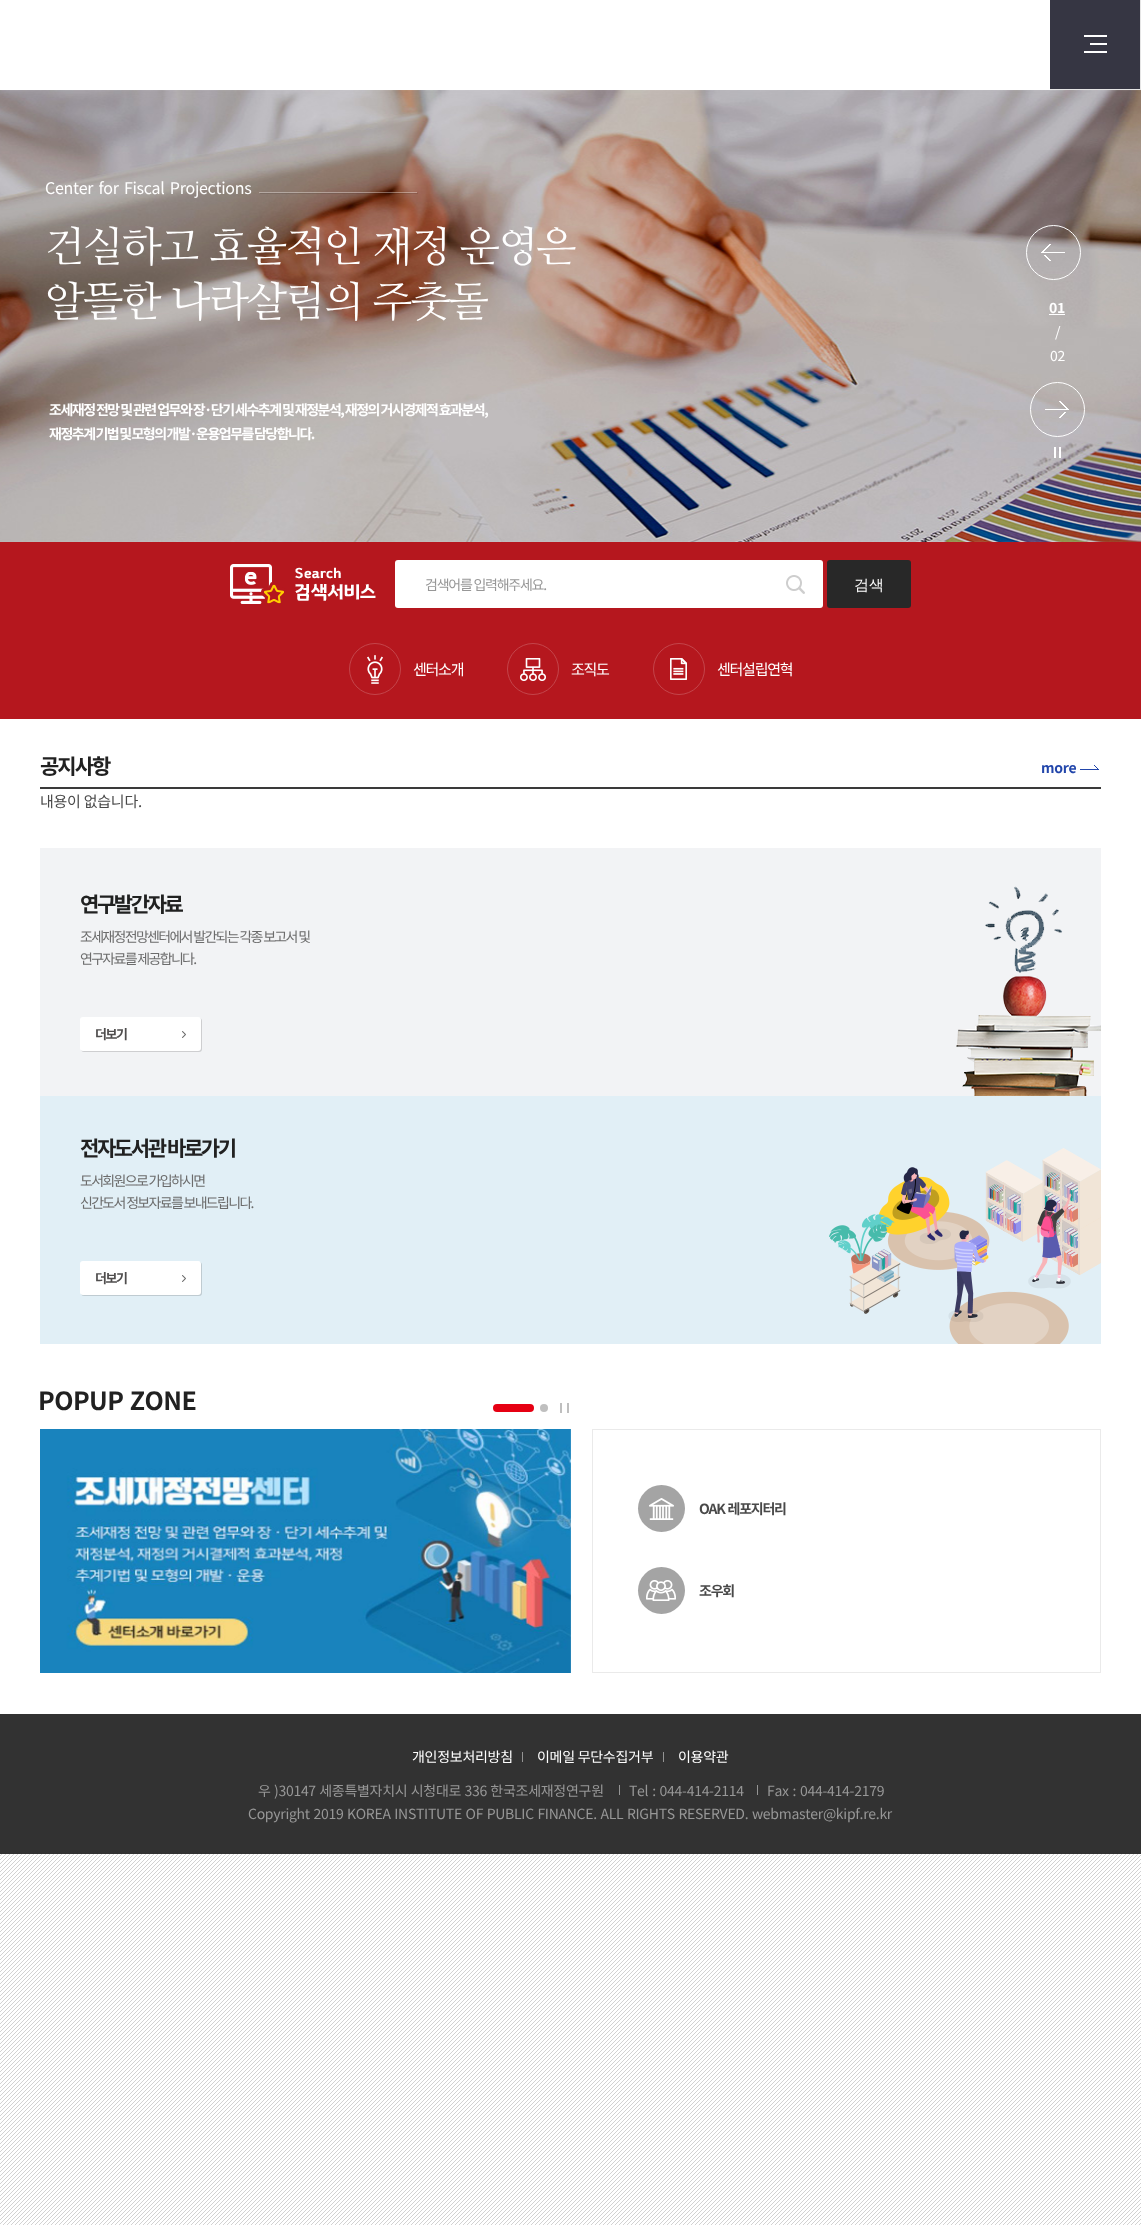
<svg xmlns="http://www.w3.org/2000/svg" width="1141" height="2225">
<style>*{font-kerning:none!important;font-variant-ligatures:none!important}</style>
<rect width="100%" height="100%" fill="#fff"/>
<image x="0" y="1854" width="1141" height="371" href="media/1.png"/>
<rect x="1140" width="1" height="90" fill="#e5e5e5"/>
<rect x="1050" y="89" width="90" height="1" fill="#e5e5e5"/>
<rect x="1050" width="90" height="89" fill="#363643"/>
<image x="1084" y="35" width="23" height="18" href="media/2.png"/>
<image x="0" y="90" width="1141" height="452" href="media/3.png"/>
<text x="45" y="194" word-spacing="2" style="font-family:Noto Sans CJK KR;font-size:16px;letter-spacing:-0.3px;fill:#fff">Center for Fiscal Projections</text>
<rect x="260" y="193" width="158" height="1" fill="#0000001a" filter="blur(0.5px)"/>
<rect x="259" y="192" width="158" height="1" fill="#ffffff59"/>
<text x="45" y="261" style="font-family:NanumMyeongjo;font-size:42px;letter-spacing:-1.7px;fill:#fff">건실하고 효율적인 재정 운영은</text>
<text x="45" y="316" style="font-family:NanumMyeongjo;font-size:42px;letter-spacing:-1.7px;fill:#fff">알뜰한 나라살림의 주춧돌</text>
<text x="49" y="415" word-spacing="-0.25" style="font-family:Noto Sans CJK KR;font-size:14px;font-weight:bold;letter-spacing:-1.5px;fill:#fff">조세재정 전망 및 관련 업무와 장·단기 세수추계 및 재정분석, 재정의 거시경제적 효과분석,</text>
<text x="49" y="439" word-spacing="-0.75" style="font-family:Noto Sans CJK KR;font-size:14px;font-weight:bold;letter-spacing:-1.5px;fill:#fff">재정추계 기법 및 모형의 개발·운용업무를 담당합니다.</text>
<image x="1041" y="244" width="24" height="17" href="media/4.png"/>
<circle cx="1053.5" cy="252.5" r="27" fill="none" stroke="#fff"/>
<rect x="1049" y="314" width="16" height="1" fill="#fff"/>
<text x="1049" y="313" style="font-family:Noto Sans CJK KR;font-size:14px;font-weight:bold;letter-spacing:-0.28px;fill:#fff">01</text>
<text x="1055" y="337" style="font-family:Noto Sans CJK KR;font-size:14px;letter-spacing:-0.28px;fill:#fff">/</text>
<text x="1050" y="361" style="font-family:Noto Sans CJK KR;font-size:14px;letter-spacing:-0.28px;fill:#fff">02</text>
<image x="1045" y="401" width="24" height="17" href="media/5.png"/>
<circle cx="1057.5" cy="409.5" r="27" fill="none" stroke="#fff"/>
<image x="1054" y="447" width="7" height="11" href="media/6.png"/>
<rect y="542" width="1141" height="177" fill="#b5171e"/>
<image x="230" y="564" width="146" height="40" href="media/7.png"/>
<rect x="395" y="560" width="428" height="48" rx="3" fill="#fff"/>
<image x="786" y="575" width="19" height="19" href="media/8.png"/>
<text x="425" y="590" style="font-family:Noto Sans CJK KR;font-size:14px;letter-spacing:-1.25px;fill:#979797">검색어를 입력해주세요.</text>
<rect x="827" y="560" width="84" height="48" rx="3" fill="#282828"/>
<text x="854" y="590" style="font-family:WenQuanYi Zen Hei;font-size:15px;font-weight:500;fill:#fff">검색</text>
<image x="367" y="655" width="16" height="29" href="media/9.png"/>
<circle cx="375" cy="669" r="25.5" fill="none" stroke="#c4454b"/>
<text x="413" y="675" style="font-family:Noto Sans CJK KR;font-size:15px;letter-spacing:-1.25px;fill:#fff">센터소개</text>
<image x="520" y="658" width="26" height="23" href="media/10.png"/>
<circle cx="533" cy="669" r="25.5" fill="none" stroke="#c4454b"/>
<text x="571" y="675" style="font-family:Noto Sans CJK KR;font-size:15px;letter-spacing:-1.25px;fill:#fff">조직도</text>
<image x="670" y="658" width="17" height="22" href="media/11.png"/>
<circle cx="679" cy="669" r="25.5" fill="none" stroke="#c4454b"/>
<text x="717" y="675" style="font-family:Noto Sans CJK KR;font-size:15px;letter-spacing:-1.25px;fill:#fff">센터설립연혁</text>
<text x="40" y="774" style="font-family:Noto Sans CJK KR;font-size:21px;font-weight:bold;letter-spacing:-2px;fill:#212121">공지사항</text>
<rect x="40" y="787" width="1061" height="2" fill="#3a3a3a"/>
<image x="1080" y="765" width="19" height="5" href="media/12.png"/>
<text x="1041" y="773" style="font-family:Noto Sans CJK KR;font-size:14px;font-weight:bold;letter-spacing:-0.28px;fill:#2246ab">more</text>
<text x="40" y="807" style="font-family:Noto Sans CJK KR;font-size:15px;letter-spacing:-0.25px;fill:#494949">내용이 없습니다.</text>
<rect x="40" y="848" width="1061" height="248" fill="#f2f3f5"/>
<image x="956" y="886" width="145" height="210" href="media/13.png"/>
<text x="80" y="912" style="font-family:Noto Sans CJK KR;font-size:21px;font-weight:bold;letter-spacing:-2.4px;fill:#212121">연구발간자료</text>
<text x="80" y="942" style="font-family:Noto Sans CJK KR;font-size:14px;letter-spacing:-1.7px;fill:#6c6c6c">조세재정전망센터에서 발간되는 각종 보고서 및</text>
<text x="80" y="964" style="font-family:Noto Sans CJK KR;font-size:14px;letter-spacing:-1.7px;fill:#6c6c6c">연구자료를 제공합니다.</text>
<rect x="81" y="1018" width="121" height="34" rx="3" fill="#00000026" filter="blur(0.5px)"/>
<rect x="80" y="1017" width="121" height="34" rx="3" fill="#fff"/>
<image x="182" y="1031" width="4" height="7" href="media/14.png"/>
<text x="95" y="1039" style="font-family:Noto Sans CJK KR;font-size:13px;font-weight:bold;letter-spacing:-1.5px;fill:#504e4e">더보기</text>
<rect x="40" y="1096" width="1061" height="248" fill="#e1eff6"/>
<image x="829" y="1148" width="272" height="196" href="media/15.png"/>
<text x="80" y="1156" style="font-family:Noto Sans CJK KR;font-size:21px;font-weight:bold;letter-spacing:-2.4px;fill:#212121">전자도서관 바로가기</text>
<text x="80" y="1186" style="font-family:Noto Sans CJK KR;font-size:14px;letter-spacing:-1.7px;fill:#6c6c6c">도서회원으로 가입하시면</text>
<text x="80" y="1208" style="font-family:Noto Sans CJK KR;font-size:14px;letter-spacing:-1.7px;fill:#6c6c6c">신간도서 정보자료를 보내드립니다.</text>
<rect x="81" y="1262" width="121" height="34" rx="3" fill="#00000026" filter="blur(0.5px)"/>
<rect x="80" y="1261" width="121" height="34" rx="3" fill="#fff"/>
<image x="182" y="1275" width="4" height="7" href="media/14.png"/>
<text x="95" y="1283" style="font-family:Noto Sans CJK KR;font-size:13px;font-weight:bold;letter-spacing:-1.5px;fill:#504e4e">더보기</text>
<text x="38" y="1410" word-spacing="1" style="font-family:Noto Sans CJK KR;font-size:25px;font-weight:bold;letter-spacing:-0.5px;fill:#212121">POPUP ZONE</text>
<rect x="567" y="1403" width="2" height="10" fill="#bfbfbf"/>
<rect x="560" y="1403" width="2" height="10" fill="#bfbfbf"/>
<rect x="493" y="1404" width="41" height="8" rx="4" fill="#e60013"/>
<circle cx="544" cy="1408" r="4" fill="#bfbfbf"/>
<image x="40" y="1429" width="531" height="244" href="media/16.png"/>
<rect x="592.5" y="1429.5" width="508" height="243" fill="none" stroke="#eaeaea"/>
<circle cx="661.5" cy="1508.5" r="23.5" fill="#a4a4a4"/>
<image x="649" y="1498" width="25" height="22" href="media/17.png"/>
<text x="699" y="1514" word-spacing="1" style="font-family:Noto Sans CJK KR;font-size:14px;font-weight:bold;letter-spacing:-1.25px;fill:#494949">OAK 레포지터리</text>
<circle cx="661.5" cy="1590.5" r="23.5" fill="#a4a4a4"/>
<image x="646" y="1580" width="30" height="21" href="media/18.png"/>
<text x="699" y="1596" style="font-family:Noto Sans CJK KR;font-size:14px;font-weight:bold;letter-spacing:-1.25px;fill:#494949">조우회</text>
<rect y="1714" width="1141" height="140" fill="#323232"/>
<text x="412" y="1762" style="font-family:Noto Sans CJK KR;font-size:14px;letter-spacing:-0.28px;fill:#fff">개인정보처리방침</text>
<rect x="522" y="1752" width="1" height="10" fill="#949494"/>
<text x="537" y="1762" style="font-family:Noto Sans CJK KR;font-size:14px;letter-spacing:-0.28px;fill:#fff">이메일 무단수집거부</text>
<rect x="663" y="1752" width="1" height="10" fill="#949494"/>
<text x="678" y="1762" style="font-family:Noto Sans CJK KR;font-size:14px;letter-spacing:-0.28px;fill:#fff">이용약관</text>
<text x="258" y="1796" word-spacing="0.5" style="font-family:Noto Sans CJK KR;font-size:14px;letter-spacing:-0.28px;fill:#979797">우 )30147 세종특별자치시 시청대로 336 한국조세재정연구원</text>
<rect x="619" y="1785" width="1" height="10" fill="#949494"/>
<text x="629" y="1796" word-spacing="1" style="font-family:Noto Sans CJK KR;font-size:14px;letter-spacing:-0.28px;fill:#979797">Tel : 044-414-2114</text>
<rect x="757" y="1785" width="1" height="10" fill="#949494"/>
<text x="767" y="1796" word-spacing="1" style="font-family:Noto Sans CJK KR;font-size:14px;letter-spacing:-0.28px;fill:#979797">Fax : 044-414-2179</text>
<text x="248" y="1819" word-spacing="0.75" style="font-family:Noto Sans CJK KR;font-size:14px;letter-spacing:-0.28px;fill:#979797">Copyright 2019 KOREA INSTITUTE OF PUBLIC FINANCE. ALL RIGHTS RESERVED. webmaster@kipf.re.kr</text>
</svg>
